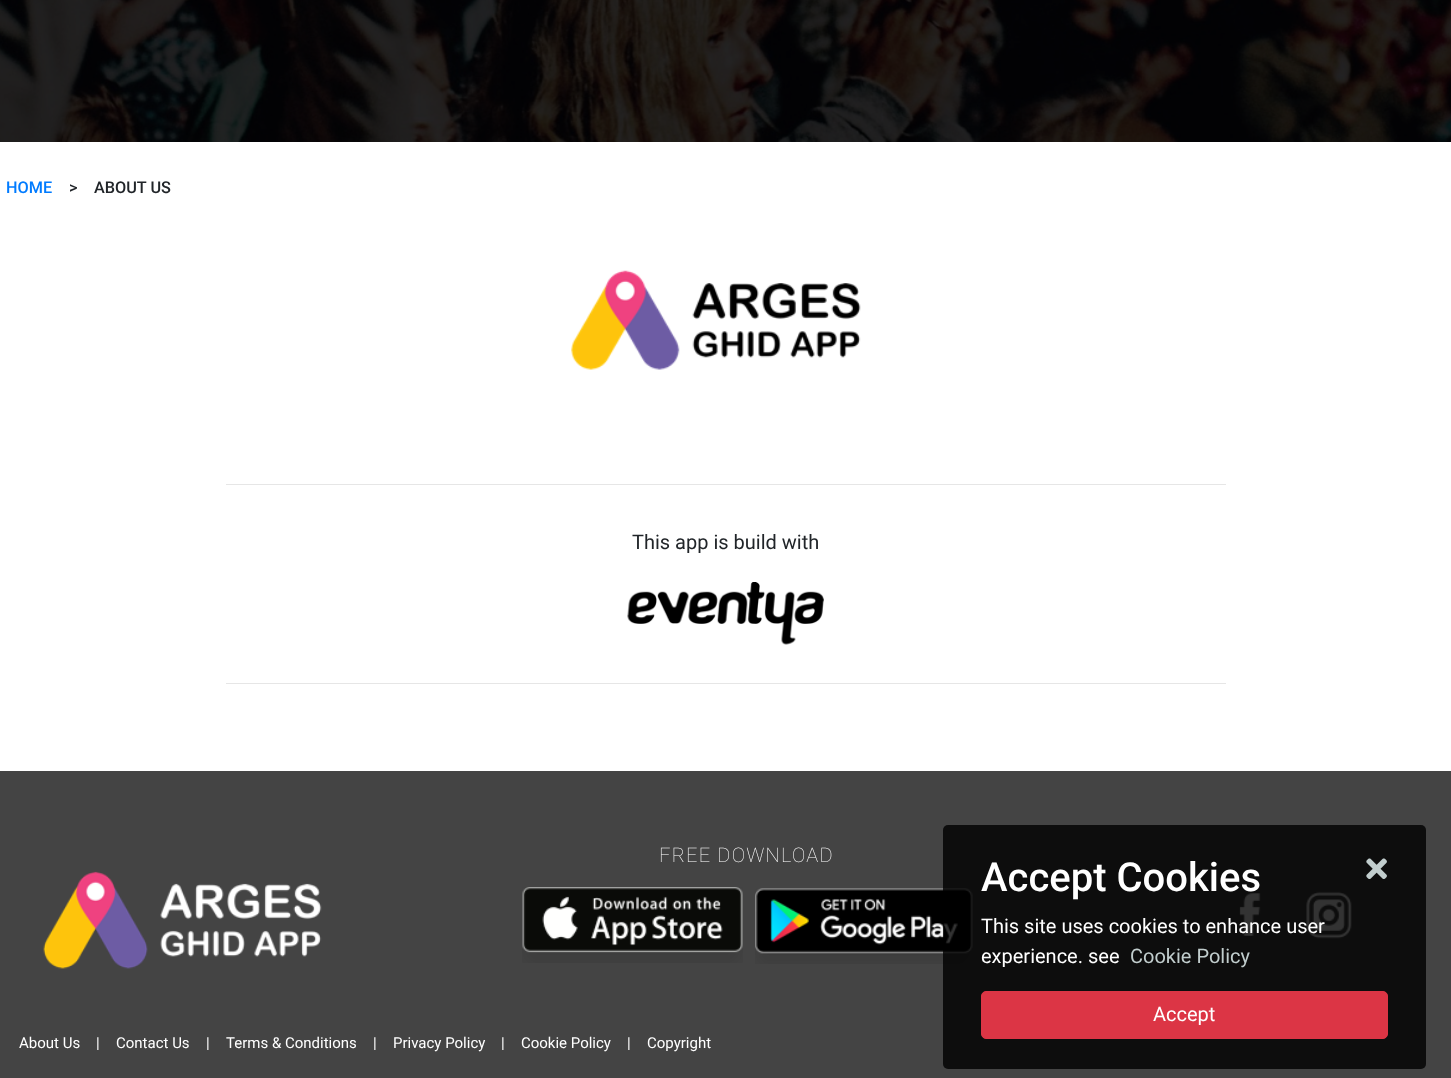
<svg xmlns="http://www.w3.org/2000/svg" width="1451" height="1078">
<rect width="100%" height="100%" fill="#fff"/>
<image x="0" y="0" width="1451" height="142" href="media/1.png"/>
<text x="6" y="193" style="font-family:Roboto;font-size:16.25px;font-weight:500;fill:#007bff">HOME</text>
<text x="69" y="193" style="font-family:Roboto;font-size:16.25px;font-weight:500;fill:#212529">&gt;</text>
<text x="94" y="193" style="font-family:Roboto;font-size:16.25px;font-weight:500;fill:#212529">ABOUT US</text>
<image x="571" y="270" width="290" height="100" href="media/2.png"/>
<rect x="226" y="484" width="1000" height="1" fill="#e6e6e6"/>
<text x="632" y="549" style="font-family:Roboto;font-size:20px;fill:#212529">This app is build with</text>
<image x="627" y="582" width="197" height="63" href="media/3.png"/>
<rect x="226" y="683" width="1000" height="1" fill="#e6e6e6"/>
<rect y="771" width="1451" height="307" fill="#444"/>
<text x="659" y="862" style="font-family:Roboto;font-size:20px;font-weight:100;letter-spacing:1.25px;fill:#fff">FREE DOWNLOAD</text>
<image x="522" y="887" width="221" height="76" href="media/4.png"/>
<image x="755" y="888" width="218" height="76" href="media/5.png"/>
<image x="43" y="871" width="279" height="98" href="media/6.png"/>
<image x="1239" y="893" width="22" height="43" href="media/7.png"/>
<image x="1306" y="891" width="46" height="48" href="media/8.png"/>
<text x="19" y="1048" style="font-family:Roboto;font-size:15px;fill:#fff">About Us</text>
<text x="96" y="1048" style="font-family:Roboto;font-size:15px;fill:#fff">|</text>
<text x="116" y="1048" style="font-family:Roboto;font-size:15px;fill:#fff">Contact Us</text>
<text x="206" y="1048" style="font-family:Roboto;font-size:15px;fill:#fff">|</text>
<text x="226" y="1048" style="font-family:Roboto;font-size:15px;fill:#fff">Terms &amp; Conditions</text>
<text x="373" y="1048" style="font-family:Roboto;font-size:15px;fill:#fff">|</text>
<text x="393" y="1048" style="font-family:Roboto;font-size:15px;fill:#fff">Privacy Policy</text>
<text x="501" y="1048" style="font-family:Roboto;font-size:15px;fill:#fff">|</text>
<text x="521" y="1048" style="font-family:Roboto;font-size:15px;fill:#fff">Cookie Policy</text>
<text x="627" y="1048" style="font-family:Roboto;font-size:15px;fill:#fff">|</text>
<text x="647" y="1048" style="font-family:Roboto;font-size:15px;fill:#fff">Copyright</text>
<rect x="943" y="825" width="483" height="244" rx="5" fill="#000000cc"/>
<text x="981" y="891" style="font-family:Roboto;font-size:40px;font-weight:500;fill:#fff">Accept Cookies</text>
<image x="1366" y="858" width="21" height="21" href="media/9.png"/>
<text x="981" y="933" style="font-family:Roboto;font-size:20px;fill:#fff">This site uses cookies to enhance user</text>
<text x="981" y="963" style="font-family:Roboto;font-size:20px;fill:#fff">experience. see</text>
<text x="1130" y="963" style="font-family:Roboto;font-size:20px;fill:#c1cdcd">Cookie Policy</text>
<rect x="981.5" y="991.5" width="406" height="47" rx="4.5" fill="#dc3545" stroke="#dc3545"/>
<text x="1153" y="1021" style="font-family:Roboto;font-size:20px;fill:#fff">Accept</text>
</svg>
